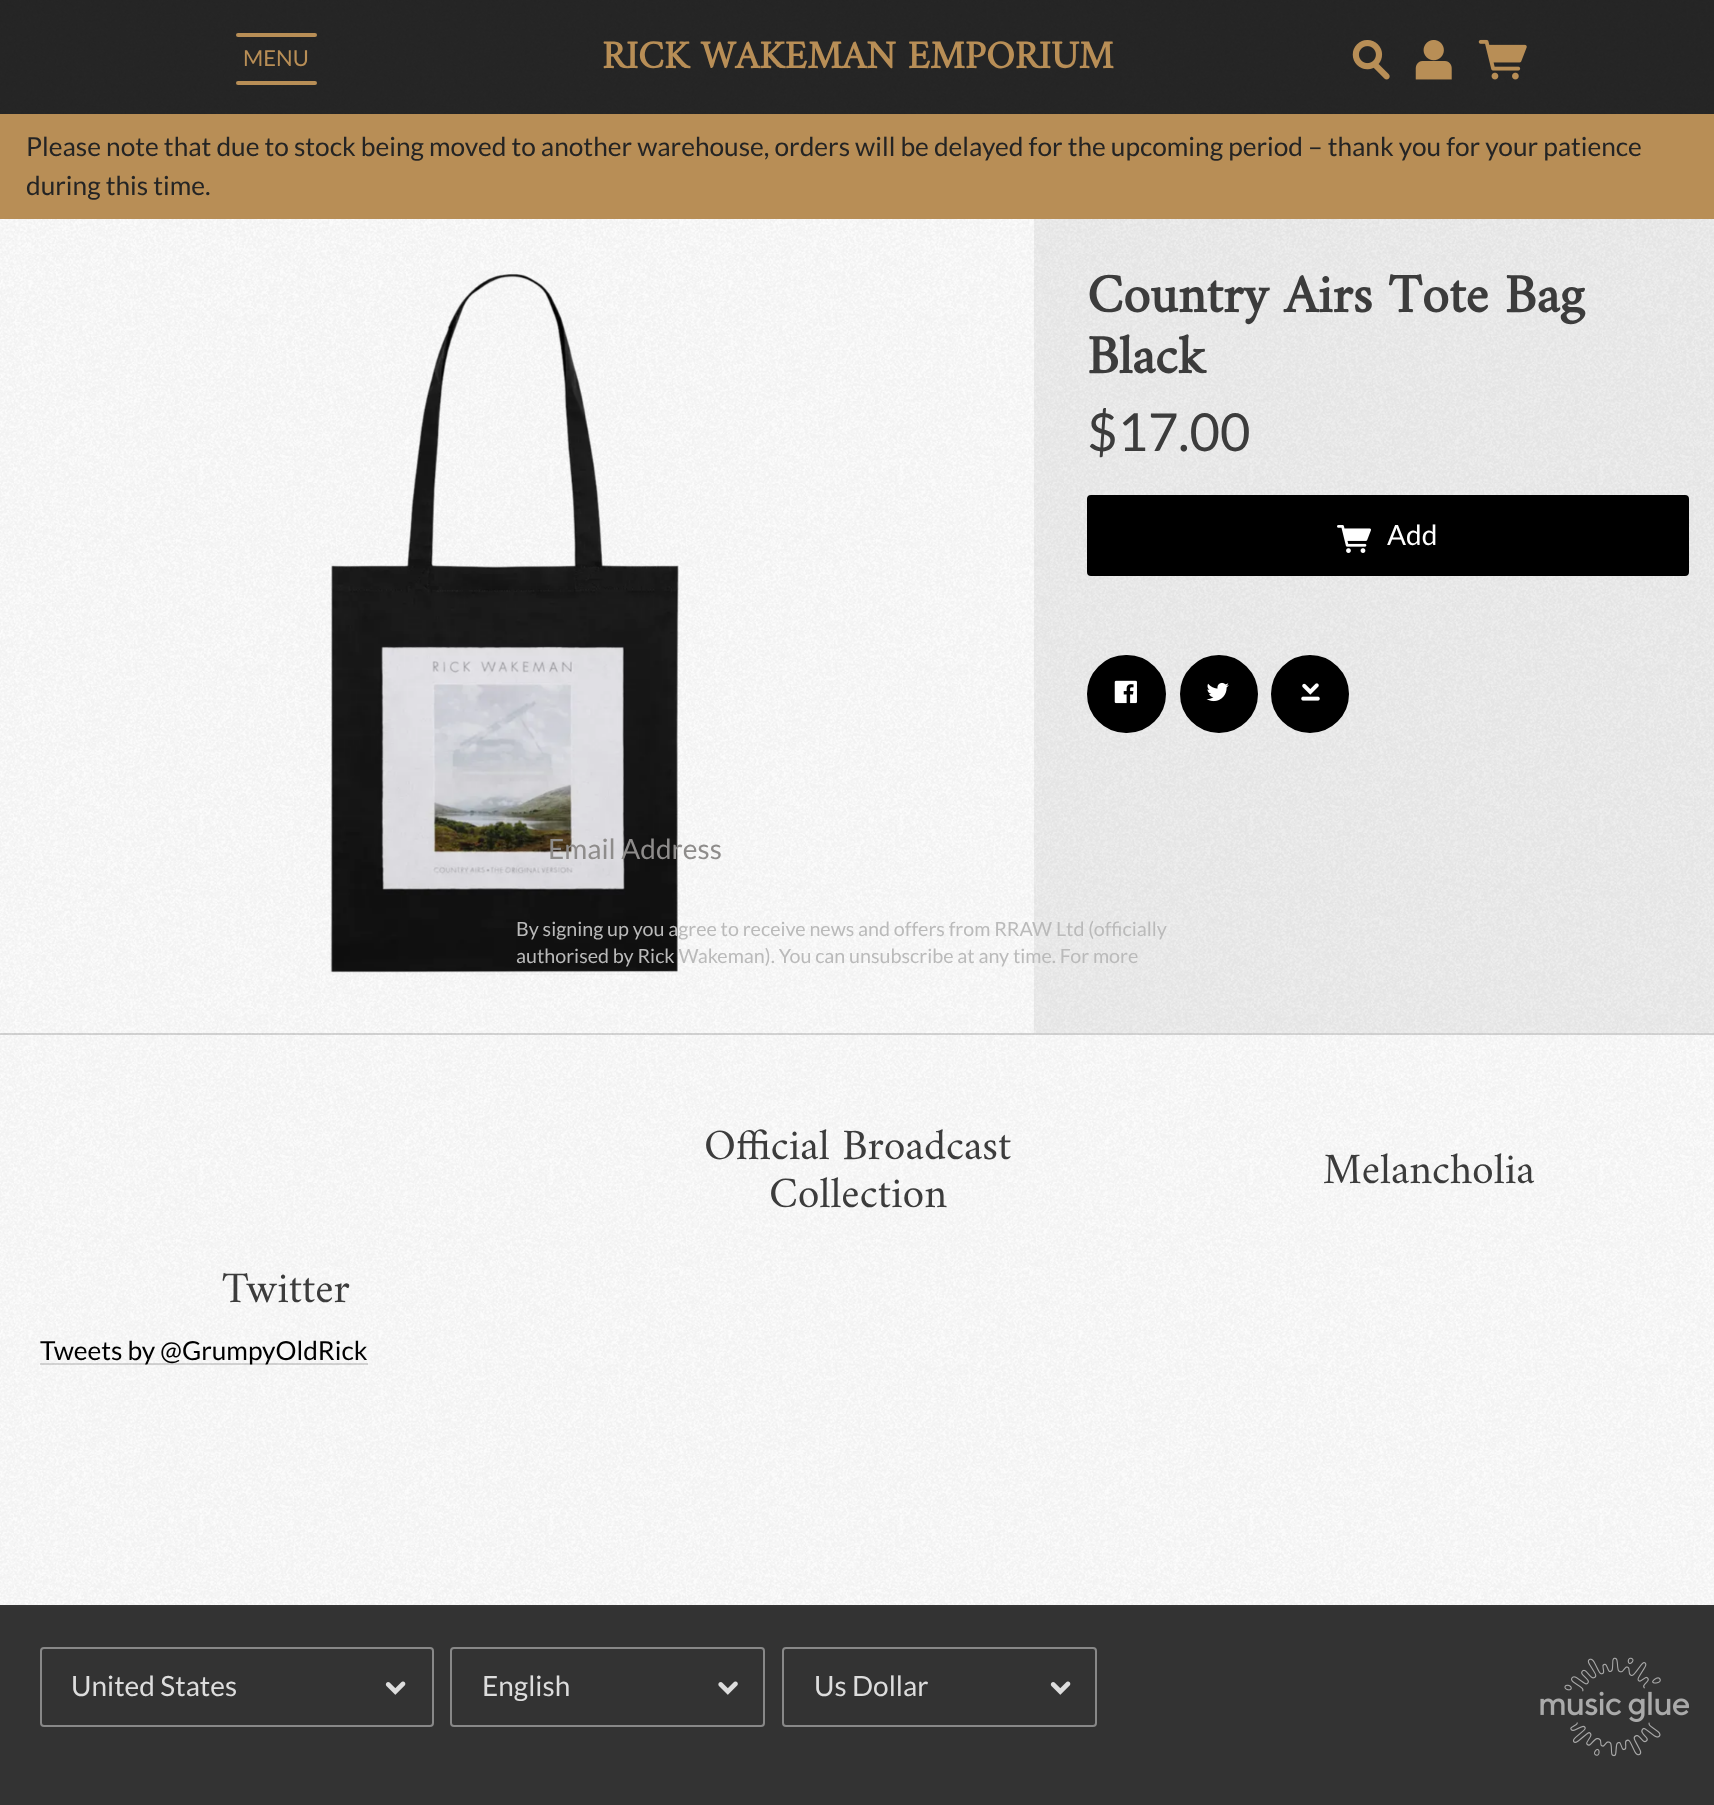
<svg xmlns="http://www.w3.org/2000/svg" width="1714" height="1805">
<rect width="100%" height="100%" fill="#fff"/>
<image x="0" y="0" width="1714" height="1605" href="media/1.png"/>
<rect width="1714" height="4" fill="#000000d9"/>
<rect y="4" width="1714" height="110" fill="#000000d9"/>
<rect x="236" y="33" width="81" height="4" rx="2" fill="#b88e56"/>
<rect x="236" y="81" width="81" height="4" rx="2" fill="#b88e56"/>
<text x="243" y="66" style="font-family:Lato;font-size:22px;fill:#b88e56">MENU</text>
<text x="602" y="68" style="font-family:Amiri;font-size:39.4px;font-weight:bold;fill:#b88e56">RICK WAKEMAN EMPORIUM</text>
<image x="1352" y="40" width="38" height="40" href="media/2.png"/>
<image x="1415" y="40" width="37" height="40" href="media/3.png"/>
<image x="1478" y="39" width="49" height="41" href="media/4.png"/>
<rect y="114" width="1714" height="105" fill="#b88e56"/>
<text x="26" y="156" style="font-family:Lato;font-size:26.25px;fill:#242424">Please note that due to stock being moved to another warehouse, orders will be delayed for the upcoming period – thank you for your patience</text>
<text x="26" y="195" style="font-family:Lato;font-size:26.25px;fill:#242424">during this time.</text>
<image x="330" y="274" width="349" height="701" href="media/5.png"/>
<rect x="1034" y="219" width="680" height="814" fill="#3c3c3c12"/>
<text x="1087" y="312" style="font-family:Amiri;font-size:54.75px;font-weight:bold;fill:#3c3c3c">Country Airs Tote Bag</text>
<text x="1087" y="373" style="font-family:Amiri;font-size:54.75px;font-weight:bold;fill:#3c3c3c">Black</text>
<text x="1087" y="451" style="font-family:Lato;font-size:52.5px;fill:#3c3c3c">$17.00</text>
<rect x="1088" y="496" width="600" height="79" rx="3" fill="#000" stroke="#000" stroke-width="2"/>
<image x="1337" y="525" width="34" height="28" href="media/6.png"/>
<text x="1387" y="545" style="font-family:Lato;font-size:28px;fill:#fff">Add</text>
<rect x="1088" y="656" width="77" height="76" rx="38" fill="#000" stroke="#000" stroke-width="2"/>
<image x="1114" y="680" width="23" height="24" href="media/7.png"/>
<circle cx="1219" cy="694" r="38" fill="#000" stroke="#000" stroke-width="2"/>
<image x="1206" y="682" width="23" height="20" href="media/8.png"/>
<circle cx="1310" cy="694" r="38" fill="#000" stroke="#000" stroke-width="2"/>
<image x="1301" y="683" width="19" height="18" href="media/9.png"/>
<text x="548" y="859" style="font-family:Lato;font-size:28px;fill:#8e8c8b">Email Address</text>
<text x="516" y="936" style="font-family:Lato;font-size:19.7px;fill:#bababa">By signing up you agree to receive news and offers from RRAW Ltd (officially</text>
<text x="516" y="963" style="font-family:Lato;font-size:19.7px;fill:#bababa">authorised by Rick Wakeman). You can unsubscribe at any time. For more</text>
<rect y="1033" width="1714" height="2" fill="#3c3c3c33"/>
<text x="704" y="1159" style="font-family:Amiri;font-size:43.75px;fill:#3c3c3c">Official Broadcast</text>
<text x="769" y="1207" style="font-family:Amiri;font-size:43.75px;fill:#3c3c3c">Collection</text>
<text x="1323" y="1183" style="font-family:Amiri;font-size:43.75px;fill:#3c3c3c">Melancholia</text>
<text x="222" y="1302" style="font-family:Amiri;font-size:43.75px;fill:#3c3c3c">Twitter</text>
<rect y="1607" width="1714" height="198" fill="#333"/>
<rect y="1605" width="1714" height="2" fill="#353535"/>
<rect x="41" y="1648" width="392" height="78" rx="3" fill="none" stroke="#888" stroke-width="2"/>
<text x="71" y="1696" style="font-family:Lato;font-size:28px;fill:#ddd">United States</text>
<image x="385" y="1681" width="21" height="14" href="media/10.png"/>
<rect x="451" y="1648" width="313" height="78" rx="3" fill="none" stroke="#888" stroke-width="2"/>
<text x="482" y="1696" style="font-family:Lato;font-size:28px;fill:#ddd">English</text>
<image x="718" y="1681" width="20" height="14" href="media/11.png"/>
<rect x="783" y="1648" width="313" height="78" rx="3" fill="none" stroke="#888" stroke-width="2"/>
<text x="814" y="1696" style="font-family:Lato;font-size:28px;fill:#ddd">Us Dollar</text>
<image x="1050" y="1681" width="21" height="14" href="media/12.png"/>
<image x="1540" y="1657" width="150" height="100" href="media/13.png"/>
<rect x="40" y="1363" width="328" height="2" fill="#3c3c3c33"/>
<text x="40" y="1360" style="font-family:Lato;font-size:26.25px;fill:#000">Tweets by @GrumpyOldRick</text>
</svg>
